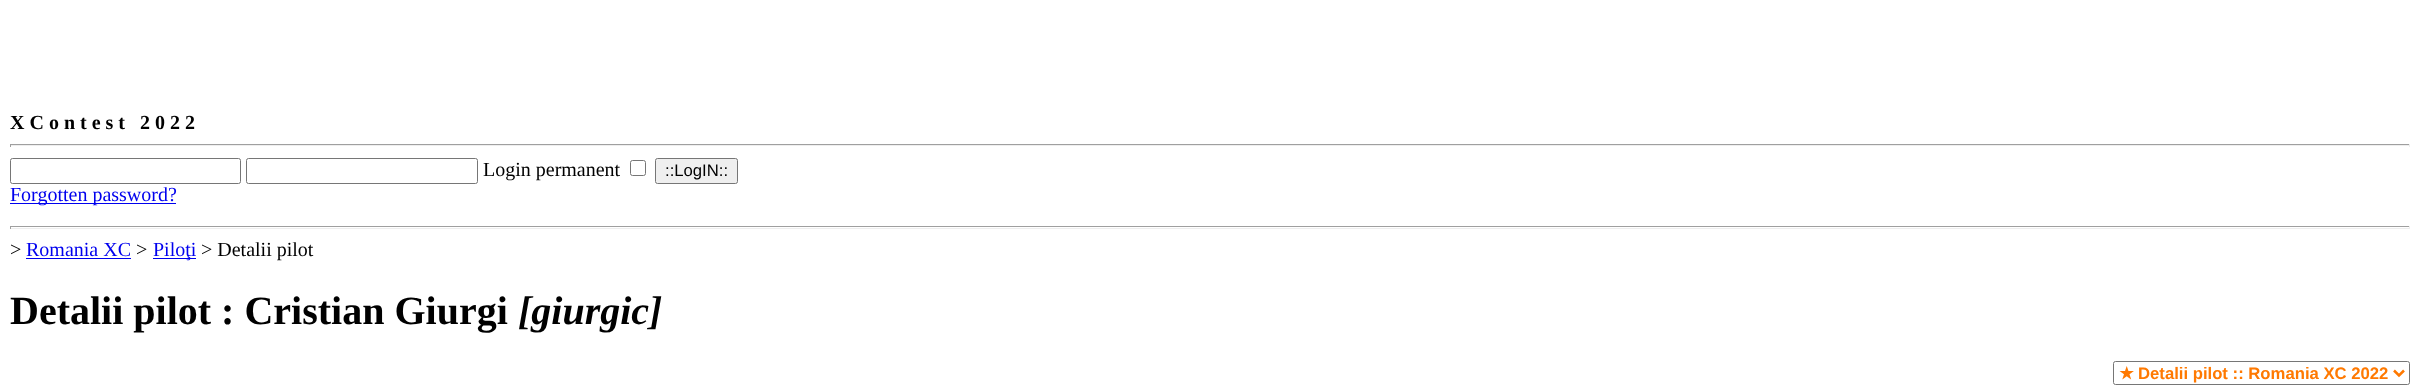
<svg xmlns="http://www.w3.org/2000/svg" width="2420" height="387">
<rect width="100%" height="100%" fill="#fff"/>
<text x="10" y="129" style="font-family:Liberation Serif;font-size:20px;font-weight:bold;fill:#000" xml:space="preserve">X C o n t e s t   2 0 2 2</text>
<rect x="10" y="144" width="2400" height="1" fill="#9f9f9f"/>
<rect x="2409" y="144" width="1" height="3" fill="#eee"/>
<rect x="10" y="145" width="2400" height="1" fill="#eee"/>
<rect x="10" y="144" width="1" height="3" fill="#9f9f9f"/>
<rect x="10.5" y="158.5" width="230" height="25" rx="2" fill="none" stroke="#767676"/>
<rect x="246.5" y="158.5" width="231" height="25" rx="2" fill="none" stroke="#767676"/>
<text x="483" y="176" style="font-family:Liberation Serif;font-size:20px;fill:#000">Login permanent</text>
<rect x="630.5" y="160.5" width="15" height="15" rx="2" fill="none" stroke="#767676"/>
<rect x="655.5" y="158.5" width="82" height="25" rx="2" fill="#efefef" stroke="#767676"/>
<text x="665" y="176" style="font-family:Liberation Sans;font-size:16.7px;fill:#000">::LogIN::</text>
<rect x="10" y="203" width="166" height="1" fill="#00e"/>
<text x="10" y="201" style="font-family:Liberation Serif;font-size:20px;fill:#00e">Forgotten password?</text>
<rect x="10" y="226" width="2400" height="1" fill="#9f9f9f"/>
<rect x="2409" y="226" width="1" height="3" fill="#eee"/>
<rect x="10" y="228" width="2400" height="1" fill="#eee"/>
<rect x="10" y="226" width="1" height="3" fill="#9f9f9f"/>
<text x="10" y="256" style="font-family:Liberation Serif;font-size:20px;fill:#000">&gt;</text>
<text x="26" y="256" style="font-family:Liberation Serif;font-size:20px;fill:#00e">Romania XC</text>
<rect x="26" y="258" width="105" height="1" fill="#00e"/>
<text x="136" y="256" style="font-family:Liberation Serif;font-size:20px;fill:#000">&gt;</text>
<rect x="153" y="258" width="43" height="1" fill="#00e"/>
<text x="153" y="256" style="font-family:Liberation Serif;font-size:20px;fill:#00e">Piloţi</text>
<text x="201" y="256" style="font-family:Liberation Serif;font-size:20px;fill:#000">&gt; Detalii pilot</text>
<text x="10" y="324" style="font-family:Liberation Serif;font-size:40px;font-weight:bold;fill:#000">Detalii pilot : Cristian Giurgi</text>
<text x="518" y="324" style="font-family:Liberation Serif;font-size:40px;font-weight:bold;font-style:italic;fill:#000">[giurgic]</text>
<rect x="2113.5" y="361.5" width="296" height="23" rx="2" fill="none" stroke="#767676"/>
<path d="M2394 370.5l5 5l5-5" fill="none" stroke="#ff7901" stroke-width="2.5"/>
<text x="2119" y="379" style="font-family:DejaVu Sans;font-size:16.7px;font-weight:bold;fill:#ff7901">★</text>
<text x="2138" y="379" style="font-family:Liberation Sans;font-size:16.7px;font-weight:bold;fill:#ff7901">Detalii pilot :: Romania XC 2022</text>
</svg>
